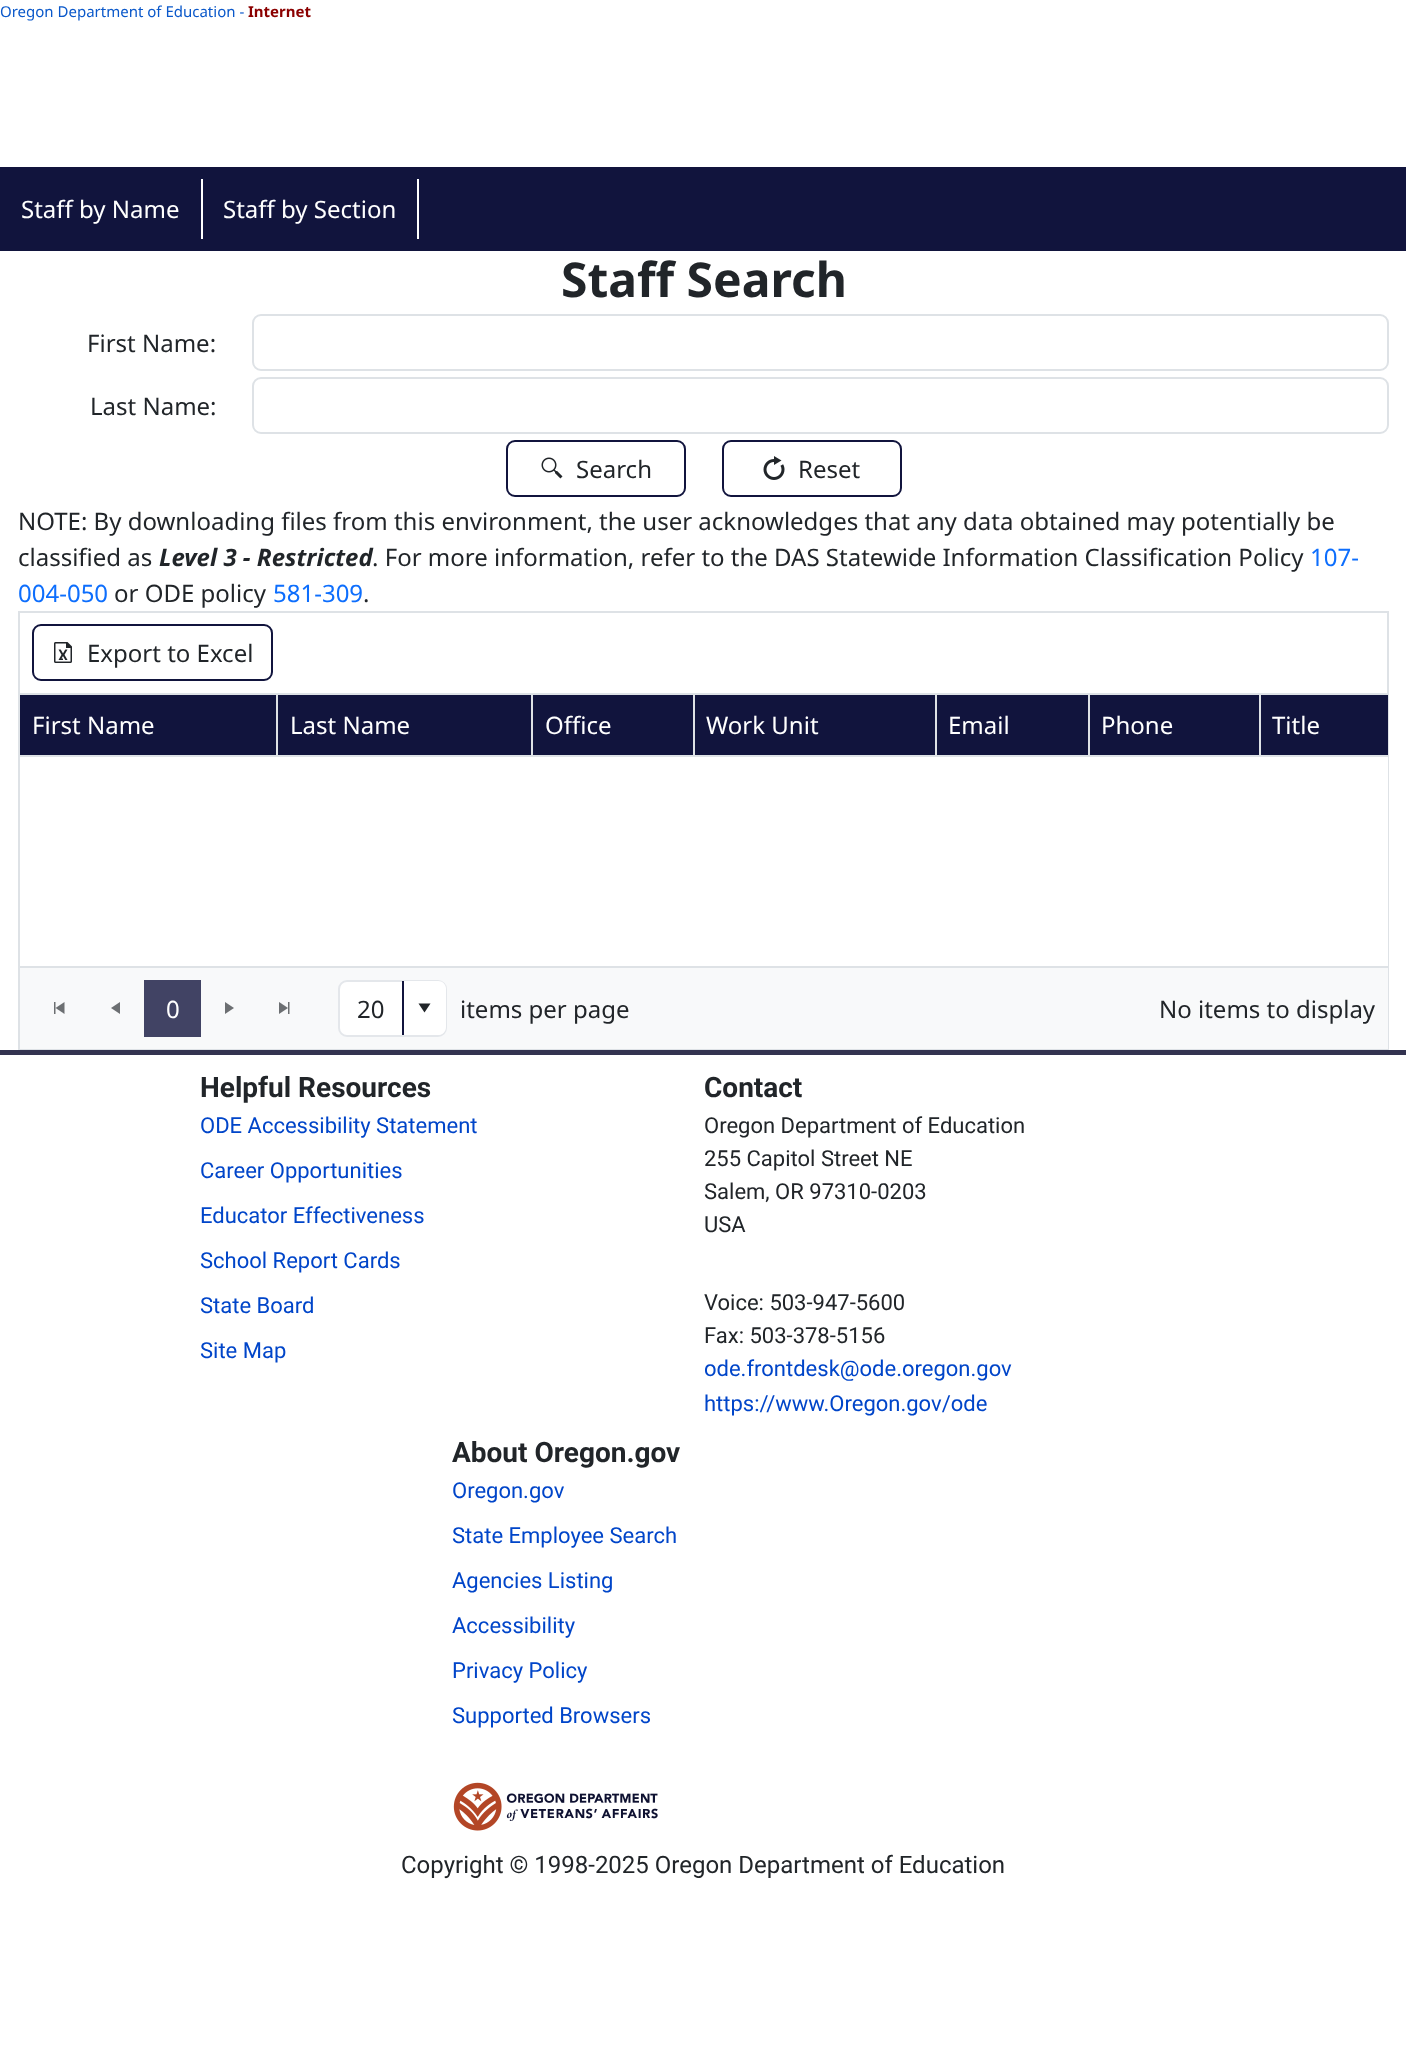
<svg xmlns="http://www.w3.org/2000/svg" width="1406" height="2048">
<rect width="100%" height="100%" fill="#fff"/>
<text x="0" y="17" style="font-family:Noto Sans;font-size:15px;fill:#0a58ca">Oregon Department of Education -</text>
<text x="248" y="17" style="font-family:Noto Sans;font-size:15px;font-weight:bold;fill:#8b0000">Internet</text>
<rect y="167" width="1406" height="84" fill="#11143d"/>
<rect x="201" y="179" width="2" height="60" fill="#fff"/>
<text x="21" y="218" style="font-family:Noto Sans;font-size:24px;fill:#fff">Staff by Name</text>
<rect x="417" y="179" width="2" height="60" fill="#fff"/>
<text x="223" y="218" style="font-family:Noto Sans;font-size:24px;fill:#fff">Staff by Section</text>
<text x="561" y="297" style="font-family:Noto Sans;font-size:48px;font-weight:bold;fill:#212529">Staff Search</text>
<text x="87" y="352" style="font-family:Noto Sans;font-size:24px;fill:#212529">First Name:</text>
<rect x="253" y="315" width="1135" height="55" rx="8" fill="none" stroke="#dee2e6" stroke-width="2"/>
<text x="90" y="415" style="font-family:Noto Sans;font-size:24px;fill:#212529">Last Name:</text>
<rect x="253" y="378" width="1135" height="55" rx="8" fill="none" stroke="#dee2e6" stroke-width="2"/>
<rect x="507" y="441" width="178" height="55" rx="8" fill="none" stroke="#11143d" stroke-width="2"/>
<image x="541" y="457" width="22" height="22" href="media/1.png"/>
<text x="576" y="478" style="font-family:Noto Sans;font-size:24px;fill:#212529">Search</text>
<rect x="723" y="441" width="178" height="55" rx="8" fill="none" stroke="#11143d" stroke-width="2"/>
<image x="763" y="456" width="22" height="24" href="media/2.png"/>
<text x="798" y="478" style="font-family:Noto Sans;font-size:24px;fill:#212529">Reset</text>
<text x="18" y="530" style="font-family:Noto Sans;font-size:24px;fill:#212529">NOTE: By downloading files from this environment, the user acknowledges that any data obtained may potentially be</text>
<text x="18" y="566" style="font-family:Noto Sans;font-size:24px;fill:#212529">classified as</text>
<text x="159" y="566" style="font-family:Noto Sans;font-size:24px;font-weight:bold;font-style:italic;fill:#212529">Level 3 - Restricted</text>
<text x="372" y="566" style="font-family:Noto Sans;font-size:24px;fill:#212529">. For more information, refer to the DAS Statewide Information Classification Policy</text>
<text x="1310" y="566" style="font-family:Noto Sans;font-size:24px;fill:#0d6efd">107-</text>
<text x="18" y="602" style="font-family:Noto Sans;font-size:24px;fill:#0d6efd">004-050</text>
<text x="114" y="602" style="font-family:Noto Sans;font-size:24px;fill:#212529">or ODE policy</text>
<text x="273" y="602" style="font-family:Noto Sans;font-size:24px;fill:#0d6efd">581-309</text>
<text x="363" y="602" style="font-family:Noto Sans;font-size:24px;fill:#212529">.</text>
<rect x="19" y="612" width="1369" height="437" fill="none" stroke="#dee2e6" stroke-width="2"/>
<rect x="20" y="693" width="1368" height="2" fill="#dee2e6"/>
<rect x="33" y="625" width="239" height="55" rx="8" fill="none" stroke="#11143d" stroke-width="2"/>
<image x="54" y="642" width="18" height="21" href="media/3.png"/>
<text x="87" y="662" style="font-family:Noto Sans;font-size:24px;fill:#212529">Export to Excel</text>
<rect x="1387" y="757" width="1" height="209" fill="#fff"/>
<rect x="20" y="755" width="1368" height="2" fill="#dee2e6"/>
<rect x="20" y="695" width="256" height="60" fill="#11143d"/>
<text x="32" y="734" style="font-family:Noto Sans;font-size:24px;fill:#fff">First Name</text>
<rect x="278" y="695" width="253" height="60" fill="#11143d"/>
<rect x="276" y="695" width="2" height="61" fill="#dee2e6"/>
<text x="290" y="734" style="font-family:Noto Sans;font-size:24px;fill:#fff">Last Name</text>
<rect x="533" y="695" width="160" height="60" fill="#11143d"/>
<rect x="531" y="695" width="2" height="61" fill="#dee2e6"/>
<text x="545" y="734" style="font-family:Noto Sans;font-size:24px;fill:#fff">Office</text>
<rect x="695" y="695" width="240" height="60" fill="#11143d"/>
<rect x="693" y="695" width="2" height="61" fill="#dee2e6"/>
<text x="706" y="734" style="font-family:Noto Sans;font-size:24px;fill:#fff">Work Unit</text>
<rect x="937" y="695" width="151" height="60" fill="#11143d"/>
<rect x="935" y="695" width="2" height="61" fill="#dee2e6"/>
<text x="948" y="734" style="font-family:Noto Sans;font-size:24px;fill:#fff">Email</text>
<rect x="1090" y="695" width="169" height="60" fill="#11143d"/>
<rect x="1088" y="695" width="2" height="61" fill="#dee2e6"/>
<text x="1101" y="734" style="font-family:Noto Sans;font-size:24px;fill:#fff">Phone</text>
<rect x="1261" y="695" width="127" height="60" fill="#11143d"/>
<rect x="1259" y="695" width="2" height="61" fill="#dee2e6"/>
<text x="1272" y="734" style="font-family:Noto Sans;font-size:24px;fill:#fff">Title</text>
<rect x="20" y="968" width="1368" height="81" fill="#f8f9fa"/>
<rect x="20" y="966" width="1368" height="2" fill="#dee2e6"/>
<image x="54" y="1002" width="11" height="12" href="media/4.png"/>
<path d="M111 1008l9-6v12z" fill="#6c6f72"/>
<rect x="144" y="980" width="57" height="57" fill="#414364"/>
<text x="166" y="1018" style="font-family:Noto Sans;font-size:24px;fill:#fff">0</text>
<path d="M234 1008l-9 6v-12z" fill="#6c6f72"/>
<image x="279" y="1002" width="11" height="12" href="media/5.png"/>
<rect x="339" y="981" width="107" height="55" rx="8" fill="#fff" stroke="#e4e7eb" stroke-width="2"/>
<text x="357" y="1018" style="font-family:Noto Sans;font-size:24px;fill:#212529">20</text>
<path d="M404 981h34c4.5 0 8 3.5 8 8v38c0 4.5-3.5 8-8 8h-34z" fill="#fff"/>
<rect x="402" y="981" width="2" height="54" fill="#11143d"/>
<path d="M424.5 1012.5l-6-9h12z" fill="#212529"/>
<text x="460" y="1018" style="font-family:Noto Sans;font-size:24px;fill:#212529">items per page</text>
<text x="1159" y="1018" style="font-family:Noto Sans;font-size:24px;fill:#212529">No items to display</text>
<rect y="1050" width="1406" height="5" fill="#333350"/>
<text x="200" y="1097" style="font-family:Roboto;font-size:28px;font-weight:bold;fill:#212529">Helpful Resources</text>
<text x="200" y="1133" style="font-family:Roboto;font-size:22px;fill:#0045c9">ODE Accessibility Statement</text>
<text x="200" y="1178" style="font-family:Roboto;font-size:22px;fill:#0045c9">Career Opportunities</text>
<text x="200" y="1223" style="font-family:Roboto;font-size:22px;fill:#0045c9">Educator Effectiveness</text>
<text x="200" y="1268" style="font-family:Roboto;font-size:22px;fill:#0045c9">School Report Cards</text>
<text x="200" y="1313" style="font-family:Roboto;font-size:22px;fill:#0045c9">State Board</text>
<text x="200" y="1358" style="font-family:Roboto;font-size:22px;fill:#0045c9">Site Map</text>
<text x="704" y="1097" style="font-family:Roboto;font-size:28px;font-weight:bold;fill:#212529">Contact</text>
<text x="704" y="1133" style="font-family:Roboto;font-size:22px;fill:#212529">Oregon Department of Education</text>
<text x="704" y="1166" style="font-family:Roboto;font-size:22px;fill:#212529">255 Capitol Street NE</text>
<text x="704" y="1199" style="font-family:Roboto;font-size:22px;fill:#212529">Salem, OR 97310-0203</text>
<text x="704" y="1232" style="font-family:Roboto;font-size:22px;fill:#212529">USA</text>
<text x="704" y="1310" style="font-family:Roboto;font-size:22px;fill:#212529">Voice: 503-947-5600</text>
<text x="704" y="1343" style="font-family:Roboto;font-size:22px;fill:#212529">Fax: 503-378-5156</text>
<text x="704" y="1376" style="font-family:Roboto;font-size:22px;fill:#0045c9">ode.frontdesk@ode.oregon.gov</text>
<text x="704" y="1411" style="font-family:Roboto;font-size:22px;fill:#0045c9">https://www.Oregon.gov/ode</text>
<text x="452" y="1462" style="font-family:Roboto;font-size:28px;font-weight:bold;fill:#212529">About Oregon.gov</text>
<text x="452" y="1498" style="font-family:Roboto;font-size:22px;fill:#0045c9">Oregon.gov</text>
<text x="452" y="1543" style="font-family:Roboto;font-size:22px;fill:#0045c9">State Employee Search</text>
<text x="452" y="1588" style="font-family:Roboto;font-size:22px;fill:#0045c9">Agencies Listing</text>
<text x="452" y="1633" style="font-family:Roboto;font-size:22px;fill:#0045c9">Accessibility</text>
<text x="452" y="1678" style="font-family:Roboto;font-size:22px;fill:#0045c9">Privacy Policy</text>
<text x="452" y="1723" style="font-family:Roboto;font-size:22px;fill:#0045c9">Supported Browsers</text>
<image x="453" y="1782" width="205" height="49" href="media/6.png"/>
<text x="401" y="1873" style="font-family:Roboto;font-size:24px;fill:#212529">Copyright © 1998-2025 Oregon Department of Education</text>
</svg>
